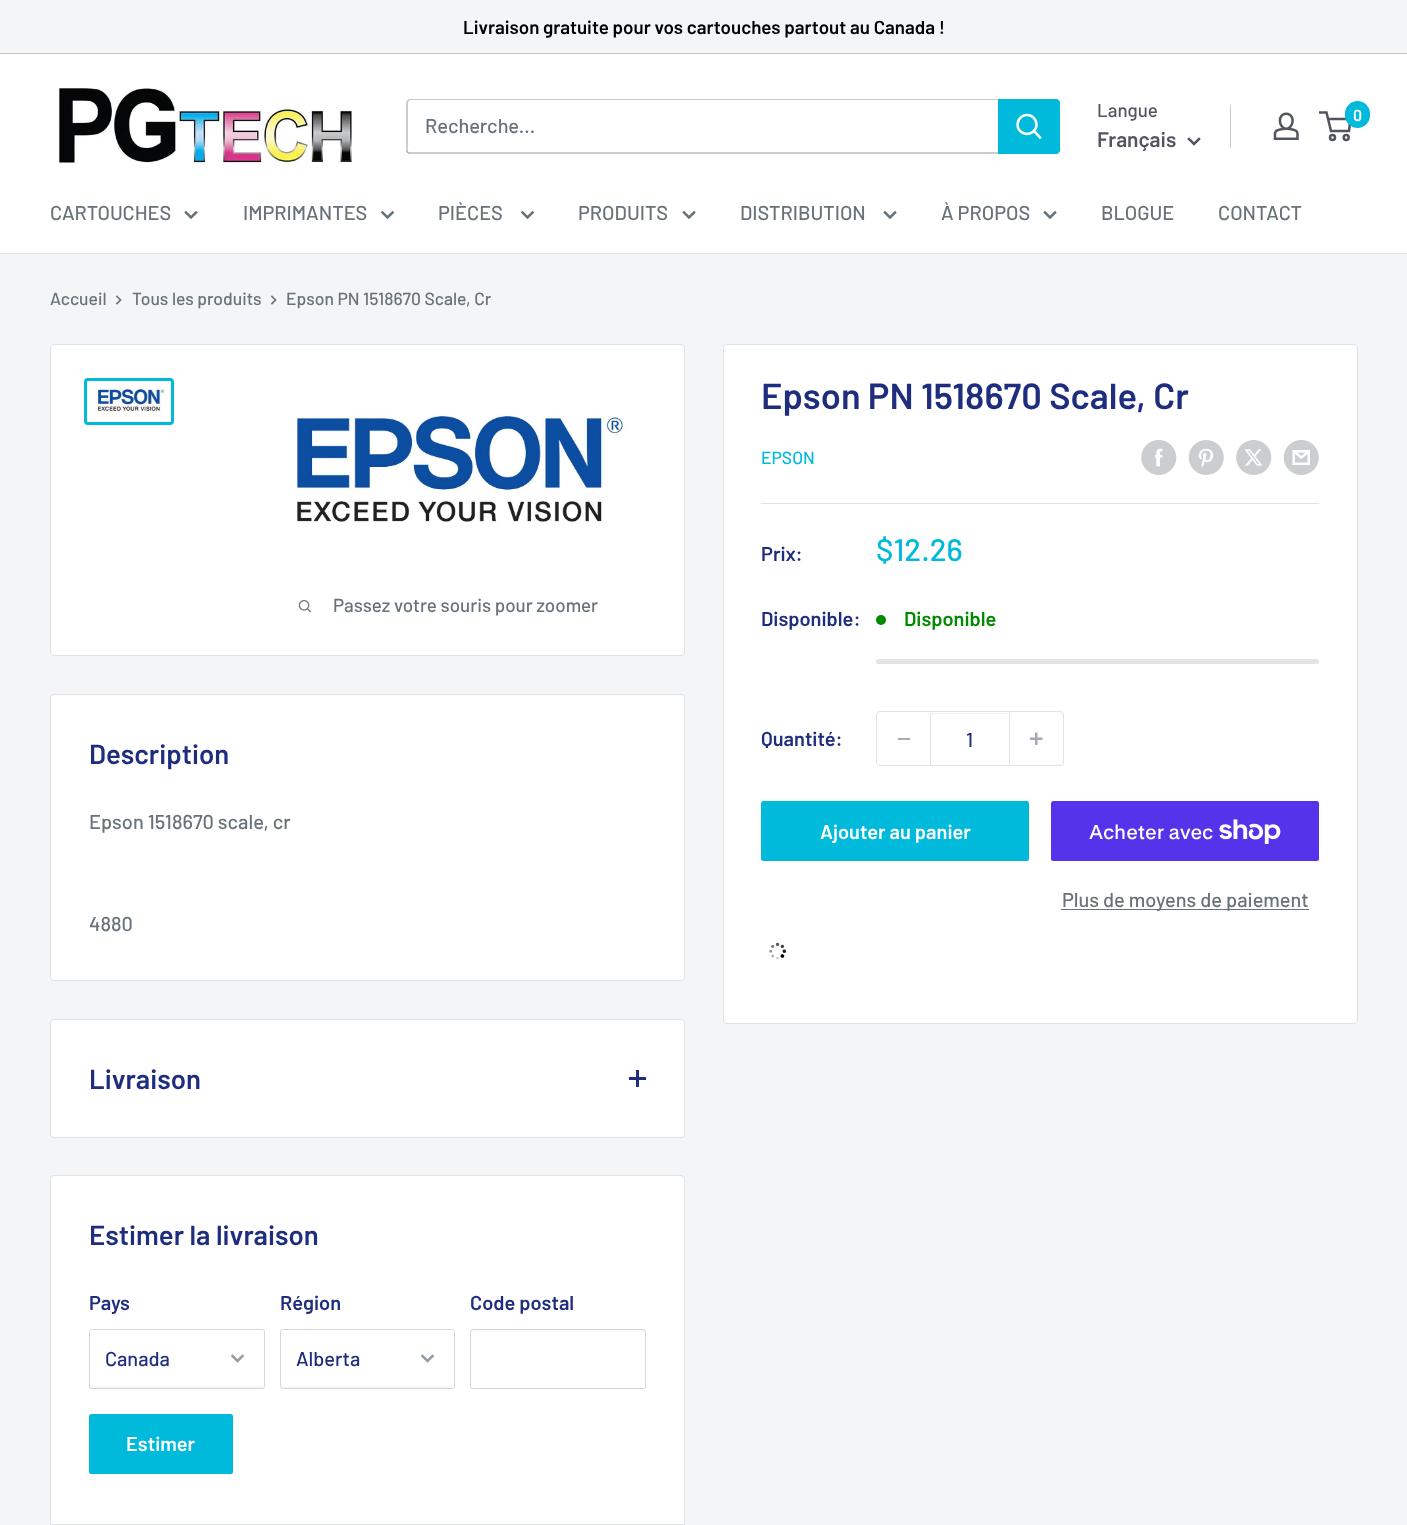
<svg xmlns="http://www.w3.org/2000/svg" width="1407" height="1525">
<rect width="100%" height="100%" fill="#f3f5f6"/>
<rect y="53" width="1407" height="1" fill="#c3c5c8"/>
<text x="463" y="34" style="font-family:Barlow;font-size:18.75px;font-weight:600;fill:#000">Livraison gratuite pour vos cartouches partout au Canada !</text>
<rect y="54" width="1407" height="199" fill="#fff"/>
<image x="58" y="88" width="294" height="77" href="media/1.png"/>
<path d="M406 151c1 2 2 3 4 3h646c2 0 4-2 4-4v-47c0-1 0-2-1-3v49c0 2-2 3-4 3h-646z" fill="#cbcccf"/>
<path d="M411 100h648c-1-1-2-1-3-1h-646c-2 0-4 2-4 4v47c0 2 1 3 3 4l-1-3v-47c0-2 1-4 3-4z" fill="#53555e4d"/>
<text x="425" y="133" style="font-family:Barlow;font-size:20px;font-weight:500;fill:#677279">Recherche...</text>
<path d="M998 99h58c2 0 4 2 4 4v47c0 2-2 4-4 4h-58z" fill="#00badb"/>
<path d="M1040 137.5l-6-6.5" fill="none" stroke="#fff" stroke-width="2.5" stroke-linecap="square"/>
<circle cx="1027" cy="124.5" r="9.5" fill="none" stroke="#fff" stroke-width="2.5"/>
<text x="1097" y="117" style="font-family:Barlow;font-size:18.75px;font-weight:500;fill:#53555e">Langue</text>
<text x="1097" y="147" style="font-family:Barlow;font-size:21px;font-weight:600;fill:#53555e">Français</text>
<path d="M1199 139l-5 5l-5-5" fill="none" stroke="#53555e" stroke-width="2.5" stroke-linecap="square"/>
<rect x="1230" y="105" width="1" height="43" fill="#cbcccf"/>
<image x="1273" y="112" width="26" height="28" href="media/2.png"/>
<circle cx="1332.5" cy="137.5" r="2.5" fill="none" stroke="#53555e" stroke-width="2.5"/>
<circle cx="1346.2" cy="137.5" r="2.5" fill="none" stroke="#53555e" stroke-width="2.5"/>
<path d="M1328 119h22.5l-1.5 12h-18l-4.5-18.5h-7.5" fill="none" stroke="#53555e" stroke-width="2.5"/>
<rect x="1345" y="101" width="25" height="27" rx="12.5" fill="#00badb"/>
<text x="1353" y="121" style="font-family:Barlow;font-size:16px;font-weight:600;fill:#fff">0</text>
<rect y="253" width="1407" height="1" fill="#e1e3e4"/>
<text x="50" y="220" style="font-family:Barlow;font-size:20px;font-weight:500;fill:#677279">CARTOUCHES</text>
<path d="M196 212.5l-5 5l-5-5" fill="none" stroke="#677279" stroke-width="2.5" stroke-linecap="square"/>
<text x="243" y="220" style="font-family:Barlow;font-size:20px;font-weight:500;fill:#677279">IMPRIMANTES</text>
<path d="M392.5 212.5l-5 5l-5-5" fill="none" stroke="#677279" stroke-width="2.5" stroke-linecap="square"/>
<text x="438" y="220" style="font-family:Barlow;font-size:20px;font-weight:500;fill:#677279">PIÈCES</text>
<path d="M532.5 212.5l-5 5l-5-5" fill="none" stroke="#677279" stroke-width="2.5" stroke-linecap="square"/>
<text x="578" y="220" style="font-family:Barlow;font-size:20px;font-weight:500;fill:#677279">PRODUITS</text>
<path d="M694 212.5l-5 5l-5-5" fill="none" stroke="#677279" stroke-width="2.5" stroke-linecap="square"/>
<text x="740" y="220" style="font-family:Barlow;font-size:20px;font-weight:500;fill:#677279">DISTRIBUTION</text>
<path d="M895 212.5l-5 5l-5-5" fill="none" stroke="#677279" stroke-width="2.5" stroke-linecap="square"/>
<text x="941" y="220" style="font-family:Barlow;font-size:20px;font-weight:500;fill:#677279">À PROPOS</text>
<path d="M1055 212.5l-5 5l-5-5" fill="none" stroke="#677279" stroke-width="2.5" stroke-linecap="square"/>
<text x="1101" y="220" style="font-family:Barlow;font-size:20px;font-weight:500;fill:#677279">BLOGUE</text>
<text x="1218" y="220" style="font-family:Barlow;font-size:20px;font-weight:500;fill:#677279">CONTACT</text>
<text x="50" y="305" style="font-family:Barlow;font-size:17.5px;font-weight:500;fill:#677279">Accueil</text>
<path d="M117 296.5l3.5 3.5l-3.5 3.5" fill="none" stroke="#677279" stroke-width="1.7" stroke-linecap="square"/>
<text x="132" y="305" style="font-family:Barlow;font-size:17.5px;font-weight:500;fill:#677279">Tous les produits</text>
<path d="M272 296.5l3.5 3.5l-3.5 3.5" fill="none" stroke="#677279" stroke-width="1.7" stroke-linecap="square"/>
<text x="286" y="305" style="font-family:Barlow;font-size:17.5px;font-weight:500;fill:#677279">Epson PN 1518670 Scale, Cr</text>
<rect x="50.5" y="344.5" width="634" height="311" rx="3.5" fill="#fff" stroke="#e1e3e4"/>
<rect x="85.5" y="379.5" width="87" height="44" rx="2.5" fill="none" stroke="#00badb" stroke-width="3"/>
<image x="97" y="387" width="68" height="25" href="media/3.png"/>
<image x="296" y="414" width="329" height="109" href="media/4.png"/>
<image x="298" y="600" width="14" height="13" href="media/5.png"/>
<text x="333" y="612" style="font-family:Barlow;font-size:18.75px;font-weight:500;fill:#677279">Passez votre souris pour zoomer</text>
<rect x="723.5" y="344.5" width="634" height="679" rx="3.5" fill="#fff" stroke="#e1e3e4"/>
<text x="761" y="409" style="font-family:Barlow;font-size:36.25px;font-weight:600;fill:#1e2d7d">Epson PN 1518670 Scale, Cr</text>
<text x="761" y="464" style="font-family:Barlow;font-size:17.5px;font-weight:500;fill:#00badb">EPSON</text>
<image x="1141" y="440" width="36" height="35" href="media/6.png"/>
<image x="1188" y="440" width="36" height="35" href="media/7.png"/>
<image x="1236" y="440" width="36" height="35" href="media/8.png"/>
<image x="1283" y="440" width="36" height="35" href="media/9.png"/>
<rect x="761" y="503" width="558" height="1" fill="#e1e3e4"/>
<text x="761" y="561" style="font-family:Barlow;font-size:20px;font-weight:600;fill:#1e2d7d">Prix:</text>
<text x="876" y="561" style="font-family:Barlow;font-size:31px;font-weight:500;fill:#00badb">$12.26</text>
<text x="761" y="626" style="font-family:Barlow;font-size:20px;font-weight:600;fill:#1e2d7d">Disponible:</text>
<circle cx="881" cy="620" r="5" fill="#008a00"/>
<text x="904" y="626" style="font-family:Barlow;font-size:20px;font-weight:600;fill:#008a00">Disponible</text>
<rect x="876" y="659" width="443" height="5" rx="2.5" fill="#e1e3e4"/>
<text x="761" y="746" style="font-family:Barlow;font-size:20px;font-weight:600;fill:#1e2d7d">Quantité:</text>
<rect x="876.5" y="711.5" width="187" height="54" rx="3.5" fill="none" stroke="#e1e3e4"/>
<rect x="898" y="738" width="12" height="2" fill="#a4aaaf"/>
<rect x="931" y="713" width="78" height="1" fill="#f3f4f4"/>
<rect x="1009" y="713" width="1" height="52" fill="#e1e3e4"/>
<rect x="930" y="713" width="1" height="52" fill="#e1e3e4"/>
<text x="966" y="747" style="font-family:Barlow;font-size:20px;font-weight:500;fill:#1e2d7d">1</text>
<image x="1030" y="732" width="13" height="13" href="media/10.png"/>
<rect x="761" y="801" width="268" height="60" rx="2.5" fill="#00badb"/>
<text x="820" y="839" style="font-family:Barlow;font-size:20px;font-weight:600;fill:#fff">Ajouter au panier</text>
<rect x="1051" y="801" width="268" height="60" rx="2.5" fill="#5433eb"/>
<text x="1089" y="839" style="font-family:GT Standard;font-size:20px;font-weight:500;fill:#fff">Acheter avec</text>
<image x="1219" y="819" width="62" height="25" href="media/11.png"/>
<rect x="1061" y="909" width="248" height="1" fill="#677279"/>
<text x="1062" y="907" style="font-family:Barlow;font-size:20px;font-weight:500;fill:#677279">Plus de moyens de paiement</text>
<image x="769" y="942" width="18" height="18" href="media/12.png"/>
<rect x="50.5" y="694.5" width="634" height="286" rx="3.5" fill="#fff" stroke="#e1e3e4"/>
<text x="89" y="764" style="font-family:Barlow;font-size:27.5px;font-weight:600;fill:#1e2d7d">Description</text>
<text x="89" y="829" style="font-family:Barlow;font-size:20px;font-weight:500;fill:#677279">Epson 1518670 scale, cr</text>
<text x="89" y="931" style="font-family:Barlow;font-size:20px;font-weight:500;fill:#677279">4880</text>
<rect x="50.5" y="1019.5" width="634" height="118" rx="3.5" fill="#fff" stroke="#e1e3e4"/>
<text x="89" y="1089" style="font-family:Barlow;font-size:27.5px;font-weight:600;fill:#1e2d7d">Livraison</text>
<rect x="636" y="1070" width="3" height="17" fill="#1e2d7d"/>
<rect x="629" y="1077" width="17" height="3" fill="#1e2d7d"/>
<rect x="50.5" y="1175.5" width="634" height="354" rx="3.5" fill="#fff" stroke="#e1e3e4"/>
<text x="89" y="1245" style="font-family:Barlow;font-size:27.5px;font-weight:600;fill:#1e2d7d">Estimer la livraison</text>
<text x="89" y="1310" style="font-family:Barlow;font-size:20px;font-weight:600;fill:#1e2d7d">Pays</text>
<path d="M90 1385c0 1 0 3 1 3h172c1 0 1-2 1-3c0 1-1 1-2 1h-171z" fill="#f6f7f7"/>
<rect x="89.5" y="1329.5" width="175" height="59" rx="2" fill="none" stroke="#d4d6d8"/>
<text x="105" y="1366" style="font-family:Barlow;font-size:20px;font-weight:500;fill:#1e2d7d">Canada</text>
<path d="M242.5 1356l-5 5l-5-5" fill="none" stroke="#959ca1" stroke-width="2.5" stroke-linecap="square"/>
<text x="280" y="1310" style="font-family:Barlow;font-size:20px;font-weight:600;fill:#1e2d7d">Région</text>
<path d="M281 1385c0 1 0 3 1 3h171c1 0 1-2 1-3c0 1-1 1-2 1h-170z" fill="#f6f7f7"/>
<rect x="280.5" y="1329.5" width="174" height="59" rx="2" fill="none" stroke="#d4d6d8"/>
<text x="296" y="1366" style="font-family:Barlow;font-size:20px;font-weight:500;fill:#1e2d7d">Alberta</text>
<path d="M432.5 1356l-5 5l-5-5" fill="none" stroke="#959ca1" stroke-width="2.5" stroke-linecap="square"/>
<text x="470" y="1310" style="font-family:Barlow;font-size:20px;font-weight:600;fill:#1e2d7d">Code postal</text>
<path d="M472 1331h172l1 1v-2h-173c-1 0-1 1-1 2z" fill="#f8f8f8"/>
<rect x="470.5" y="1329.5" width="175" height="59" rx="2" fill="none" stroke="#d4d6d8"/>
<rect x="89" y="1414" width="144" height="60" rx="2.5" fill="#00badb"/>
<text x="126" y="1451" style="font-family:Barlow;font-size:20px;font-weight:600;fill:#fff">Estimer</text>
<rect x="51" y="1524" width="633" height="1" fill="#e1e3e4"/>
</svg>
